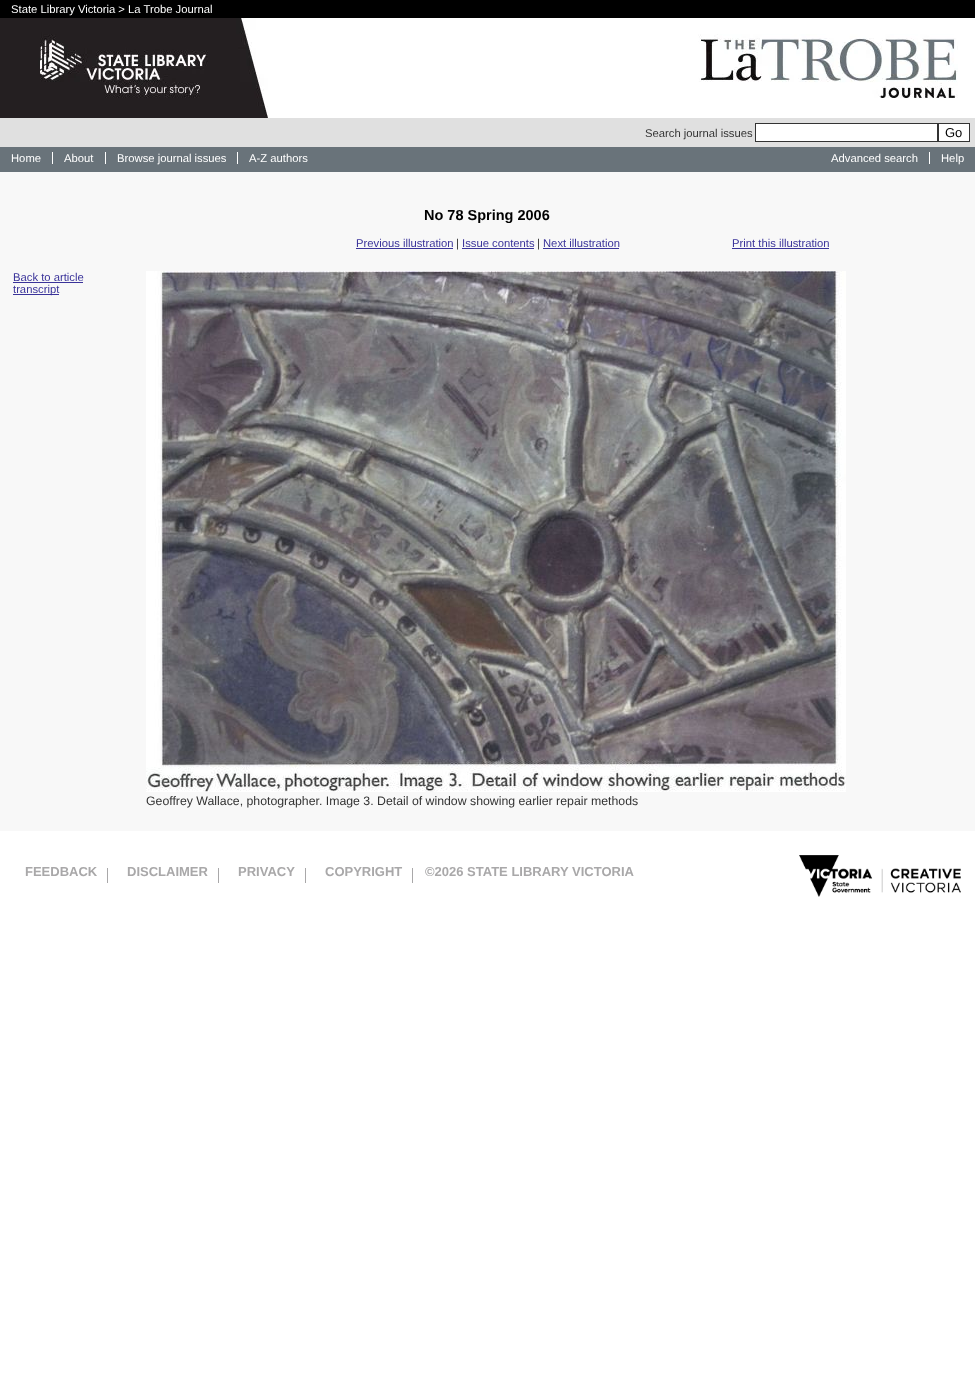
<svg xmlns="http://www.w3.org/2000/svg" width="975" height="1399">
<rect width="100%" height="100%" fill="#fff"/>
<rect width="975" height="18" fill="#000"/>
<text x="11" y="13" style="font-family:Liberation Sans;font-size:11.25px;fill:#fff">State Library Victoria &gt; La Trobe Journal</text>
<image x="0" y="18" width="268" height="100" href="media/1.png"/>
<image x="698" y="34" width="260" height="64" href="media/2.png"/>
<rect y="118" width="975" height="29" fill="#e0e0e0"/>
<text x="645" y="137" style="font-family:Liberation Sans;font-size:11.25px;fill:#333">Search journal issues</text>
<rect x="755.5" y="123.5" width="182" height="18" fill="#fff" stroke="#333"/>
<rect x="938.5" y="123.5" width="31" height="18" fill="#fff" stroke="#333"/>
<text x="945" y="137" style="font-family:Liberation Sans;font-size:13px;fill:#000">Go</text>
<rect y="147" width="975" height="25" fill="#69737a"/>
<text x="11" y="162" style="font-family:Liberation Sans;font-size:11.25px;fill:#fff">Home</text>
<text x="64" y="162" style="font-family:Liberation Sans;font-size:11.25px;fill:#fff">About</text>
<rect x="52" y="152" width="1" height="12" fill="#fff"/>
<text x="117" y="162" style="font-family:Liberation Sans;font-size:11.25px;fill:#fff">Browse journal issues</text>
<rect x="105" y="152" width="1" height="12" fill="#fff"/>
<text x="249" y="162" style="font-family:Liberation Sans;font-size:11.25px;fill:#fff">A-Z authors</text>
<rect x="237" y="152" width="1" height="12" fill="#fff"/>
<text x="831" y="162" style="font-family:Liberation Sans;font-size:11.25px;fill:#fff">Advanced search</text>
<text x="941" y="162" style="font-family:Liberation Sans;font-size:11.25px;fill:#fff">Help</text>
<rect x="929" y="152" width="1" height="12" fill="#fff"/>
<rect y="172" width="975" height="659" fill="#f8f8f8"/>
<text x="424" y="220" style="font-family:Liberation Sans;font-size:14.5px;font-weight:bold;fill:#000">No 78 Spring 2006</text>
<text x="356" y="247" style="font-family:Liberation Sans;font-size:11.25px;fill:#3a339a">Previous illustration</text>
<rect x="356" y="248" width="97" height="1" fill="#3a339a"/>
<text x="456" y="247" style="font-family:Liberation Sans;font-size:11.25px;fill:#333">|</text>
<text x="462" y="247" style="font-family:Liberation Sans;font-size:11.25px;fill:#3a339a">Issue contents</text>
<rect x="462" y="248" width="72" height="1" fill="#3a339a"/>
<text x="537" y="247" style="font-family:Liberation Sans;font-size:11.25px;fill:#333">|</text>
<text x="543" y="247" style="font-family:Liberation Sans;font-size:11.25px;fill:#3a339a">Next illustration</text>
<rect x="543" y="248" width="76" height="1" fill="#3a339a"/>
<text x="732" y="247" style="font-family:Liberation Sans;font-size:11.25px;fill:#3a339a">Print this illustration</text>
<rect x="732" y="248" width="97" height="1" fill="#3a339a"/>
<text x="13" y="281" style="font-family:Liberation Sans;font-size:11.25px;fill:#3a339a">Back to article</text>
<rect x="13" y="282" width="70" height="1" fill="#3a339a"/>
<rect x="13" y="294" width="46" height="1" fill="#3a339a"/>
<text x="13" y="293" style="font-family:Liberation Sans;font-size:11.25px;fill:#3a339a">transcript</text>
<image x="146" y="271" width="700" height="521" href="media/3.png"/>
<text x="146" y="805" style="font-family:Liberation Sans;font-size:12.3px;fill:#333">Geoffrey Wallace, photographer. Image 3. Detail of window showing earlier repair methods</text>
<text x="25" y="876" style="font-family:Liberation Sans;font-size:13px;font-weight:bold;fill:#a9a8a9">FEEDBACK</text>
<rect x="107" y="868" width="1" height="15" fill="#a9a8a9"/>
<text x="127" y="876" style="font-family:Liberation Sans;font-size:13px;font-weight:bold;fill:#a9a8a9">DISCLAIMER</text>
<rect x="218" y="868" width="1" height="15" fill="#a9a8a9"/>
<text x="238" y="876" style="font-family:Liberation Sans;font-size:13px;font-weight:bold;fill:#a9a8a9">PRIVACY</text>
<rect x="305" y="868" width="1" height="15" fill="#a9a8a9"/>
<text x="325" y="876" style="font-family:Liberation Sans;font-size:13px;font-weight:bold;fill:#a9a8a9">COPYRIGHT</text>
<rect x="412" y="868" width="1" height="15" fill="#a9a8a9"/>
<text x="425" y="876" style="font-family:Liberation Sans;font-size:13px;font-weight:bold;fill:#a9a8a9">©2026 STATE LIBRARY VICTORIA</text>
<image x="799" y="855" width="162" height="42" href="media/4.png"/>
</svg>
